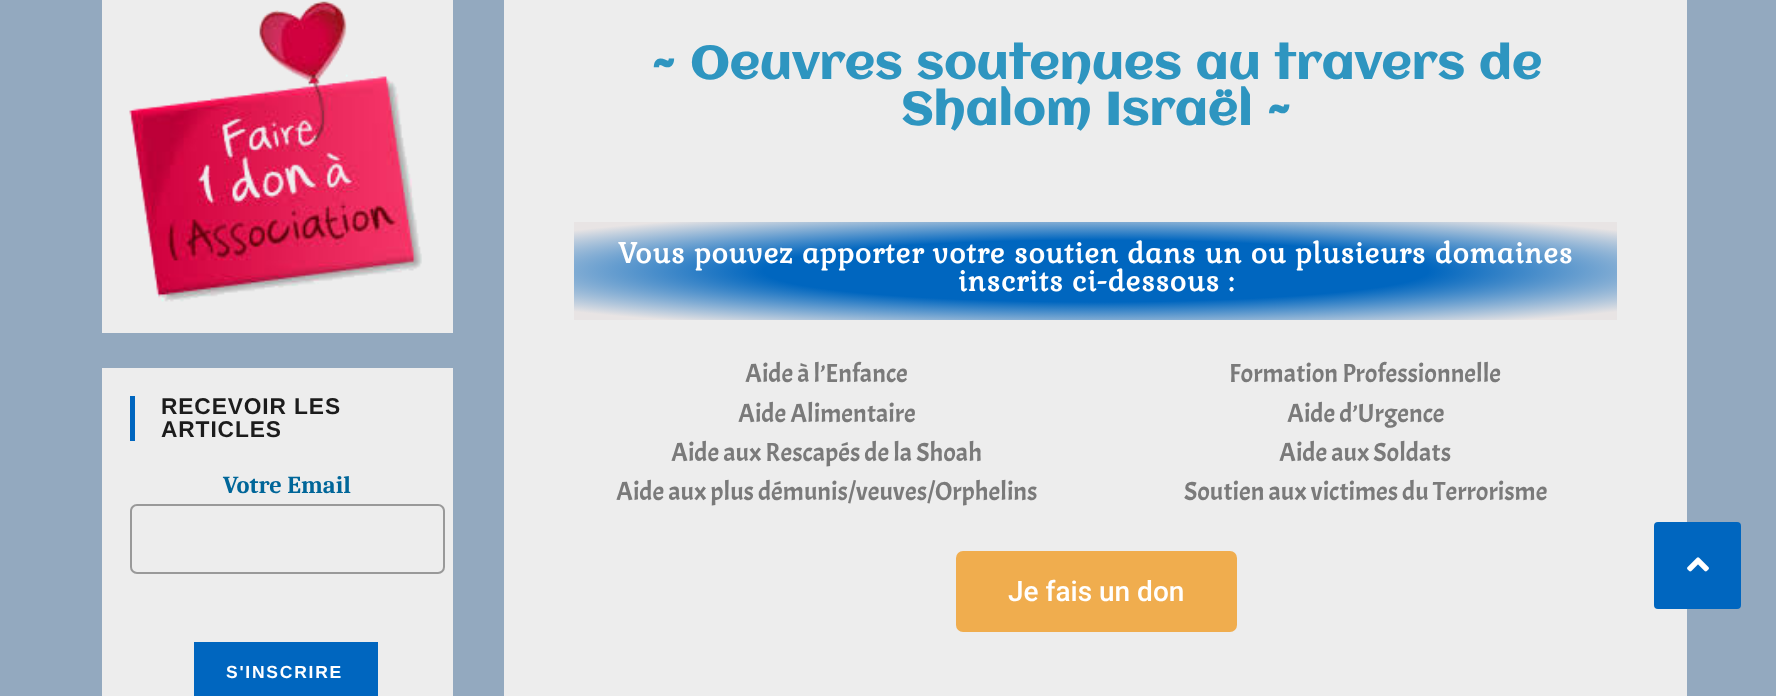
<svg xmlns="http://www.w3.org/2000/svg" width="1776" height="696">
<defs>
<radialGradient id="g1" gradientUnits="userSpaceOnUse" cx="0" cy="0" r="1" gradientTransform="matrix(738 0 0 69 1096 271)"><stop offset="0.45" stop-color="#0066bf"/><stop offset="0.92" stop-color="#e8e4e4"/></radialGradient>
</defs>
<rect width="100%" height="100%" fill="#93a9bf"/>
<rect x="102" width="351" height="333" fill="#ededed"/>
<image x="129" y="1" width="293" height="301" href="media/1.png"/>
<rect x="102" y="368" width="351" height="328" fill="#ededed"/>
<rect x="130" y="396" width="5" height="45" fill="#0066bf"/>
<text x="161" y="414" style="font-family:Liberation Sans;font-size:22.75px;font-weight:bold;letter-spacing:0.88px;fill:#1c1c1c">RECEVOIR LES</text>
<text x="161" y="437" style="font-family:Liberation Sans;font-size:22.75px;font-weight:bold;letter-spacing:0.88px;fill:#1c1c1c">ARTICLES</text>
<text x="223" y="493" style="font-family:Caladea;font-size:24.5px;font-weight:bold;fill:#069">Votre Email</text>
<rect x="131" y="505" width="313" height="68" rx="6" fill="none" stroke="#999" stroke-width="2"/>
<rect x="194" y="642" width="184" height="54" fill="#0066bf"/>
<text x="226" y="678" style="font-family:Liberation Sans;font-size:17.5px;font-weight:bold;letter-spacing:1.75px;fill:#fff">S'INSCRIRE</text>
<rect x="504" width="1183" height="696" fill="#ededed"/>
<text x="651" y="79" style="font-family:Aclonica;font-size:45.5px;font-weight:bold;letter-spacing:0.88px;fill:#2e95c0">~ Oeuvres soutenues au travers de</text>
<text x="901" y="125" style="font-family:Aclonica;font-size:45.5px;font-weight:bold;letter-spacing:0.88px;fill:#2e95c0">Shalom Israël ~</text>
<rect x="574" y="222" width="1043" height="98" fill="url(#g1)"/>
<text x="618" y="263" style="font-family:Gabriela;font-size:28px;font-weight:bold;letter-spacing:0.88px;fill:#fff">Vous pouvez apporter votre soutien dans un ou plusieurs domaines</text>
<text x="958" y="291" style="font-family:Gabriela;font-size:28px;font-weight:bold;letter-spacing:0.88px;fill:#fff">inscrits ci-dessous :</text>
<text x="745" y="382" style="font-family:Acme;font-size:26.25px;fill:#7a7a7a">Aide à l’Enfance</text>
<text x="738" y="422" style="font-family:Acme;font-size:26.25px;fill:#7a7a7a">Aide Alimentaire</text>
<text x="671" y="461" style="font-family:Acme;font-size:26.25px;fill:#7a7a7a">Aide aux Rescapés de la Shoah</text>
<text x="616" y="500" style="font-family:Acme;font-size:26.25px;fill:#7a7a7a">Aide aux plus démunis/veuves/Orphelins</text>
<text x="1229" y="382" style="font-family:Acme;font-size:26.25px;fill:#7a7a7a">Formation Professionnelle</text>
<text x="1287" y="422" style="font-family:Acme;font-size:26.25px;fill:#7a7a7a">Aide d’Urgence</text>
<text x="1279" y="461" style="font-family:Acme;font-size:26.25px;fill:#7a7a7a">Aide aux Soldats</text>
<text x="1184" y="500" style="font-family:Acme;font-size:26.25px;fill:#7a7a7a">Soutien aux victimes du Terrorisme</text>
<rect x="956" y="551" width="281" height="81" rx="7" fill="#f0ad4e"/>
<text x="1008" y="601" style="font-family:Roboto;font-size:28px;font-weight:500;fill:#fff">Je fais un don</text>
<rect x="1654" y="522" width="87" height="87" rx="4" fill="#0066bf"/>
<image x="1687" y="557" width="22" height="15" href="media/2.png"/>
</svg>
